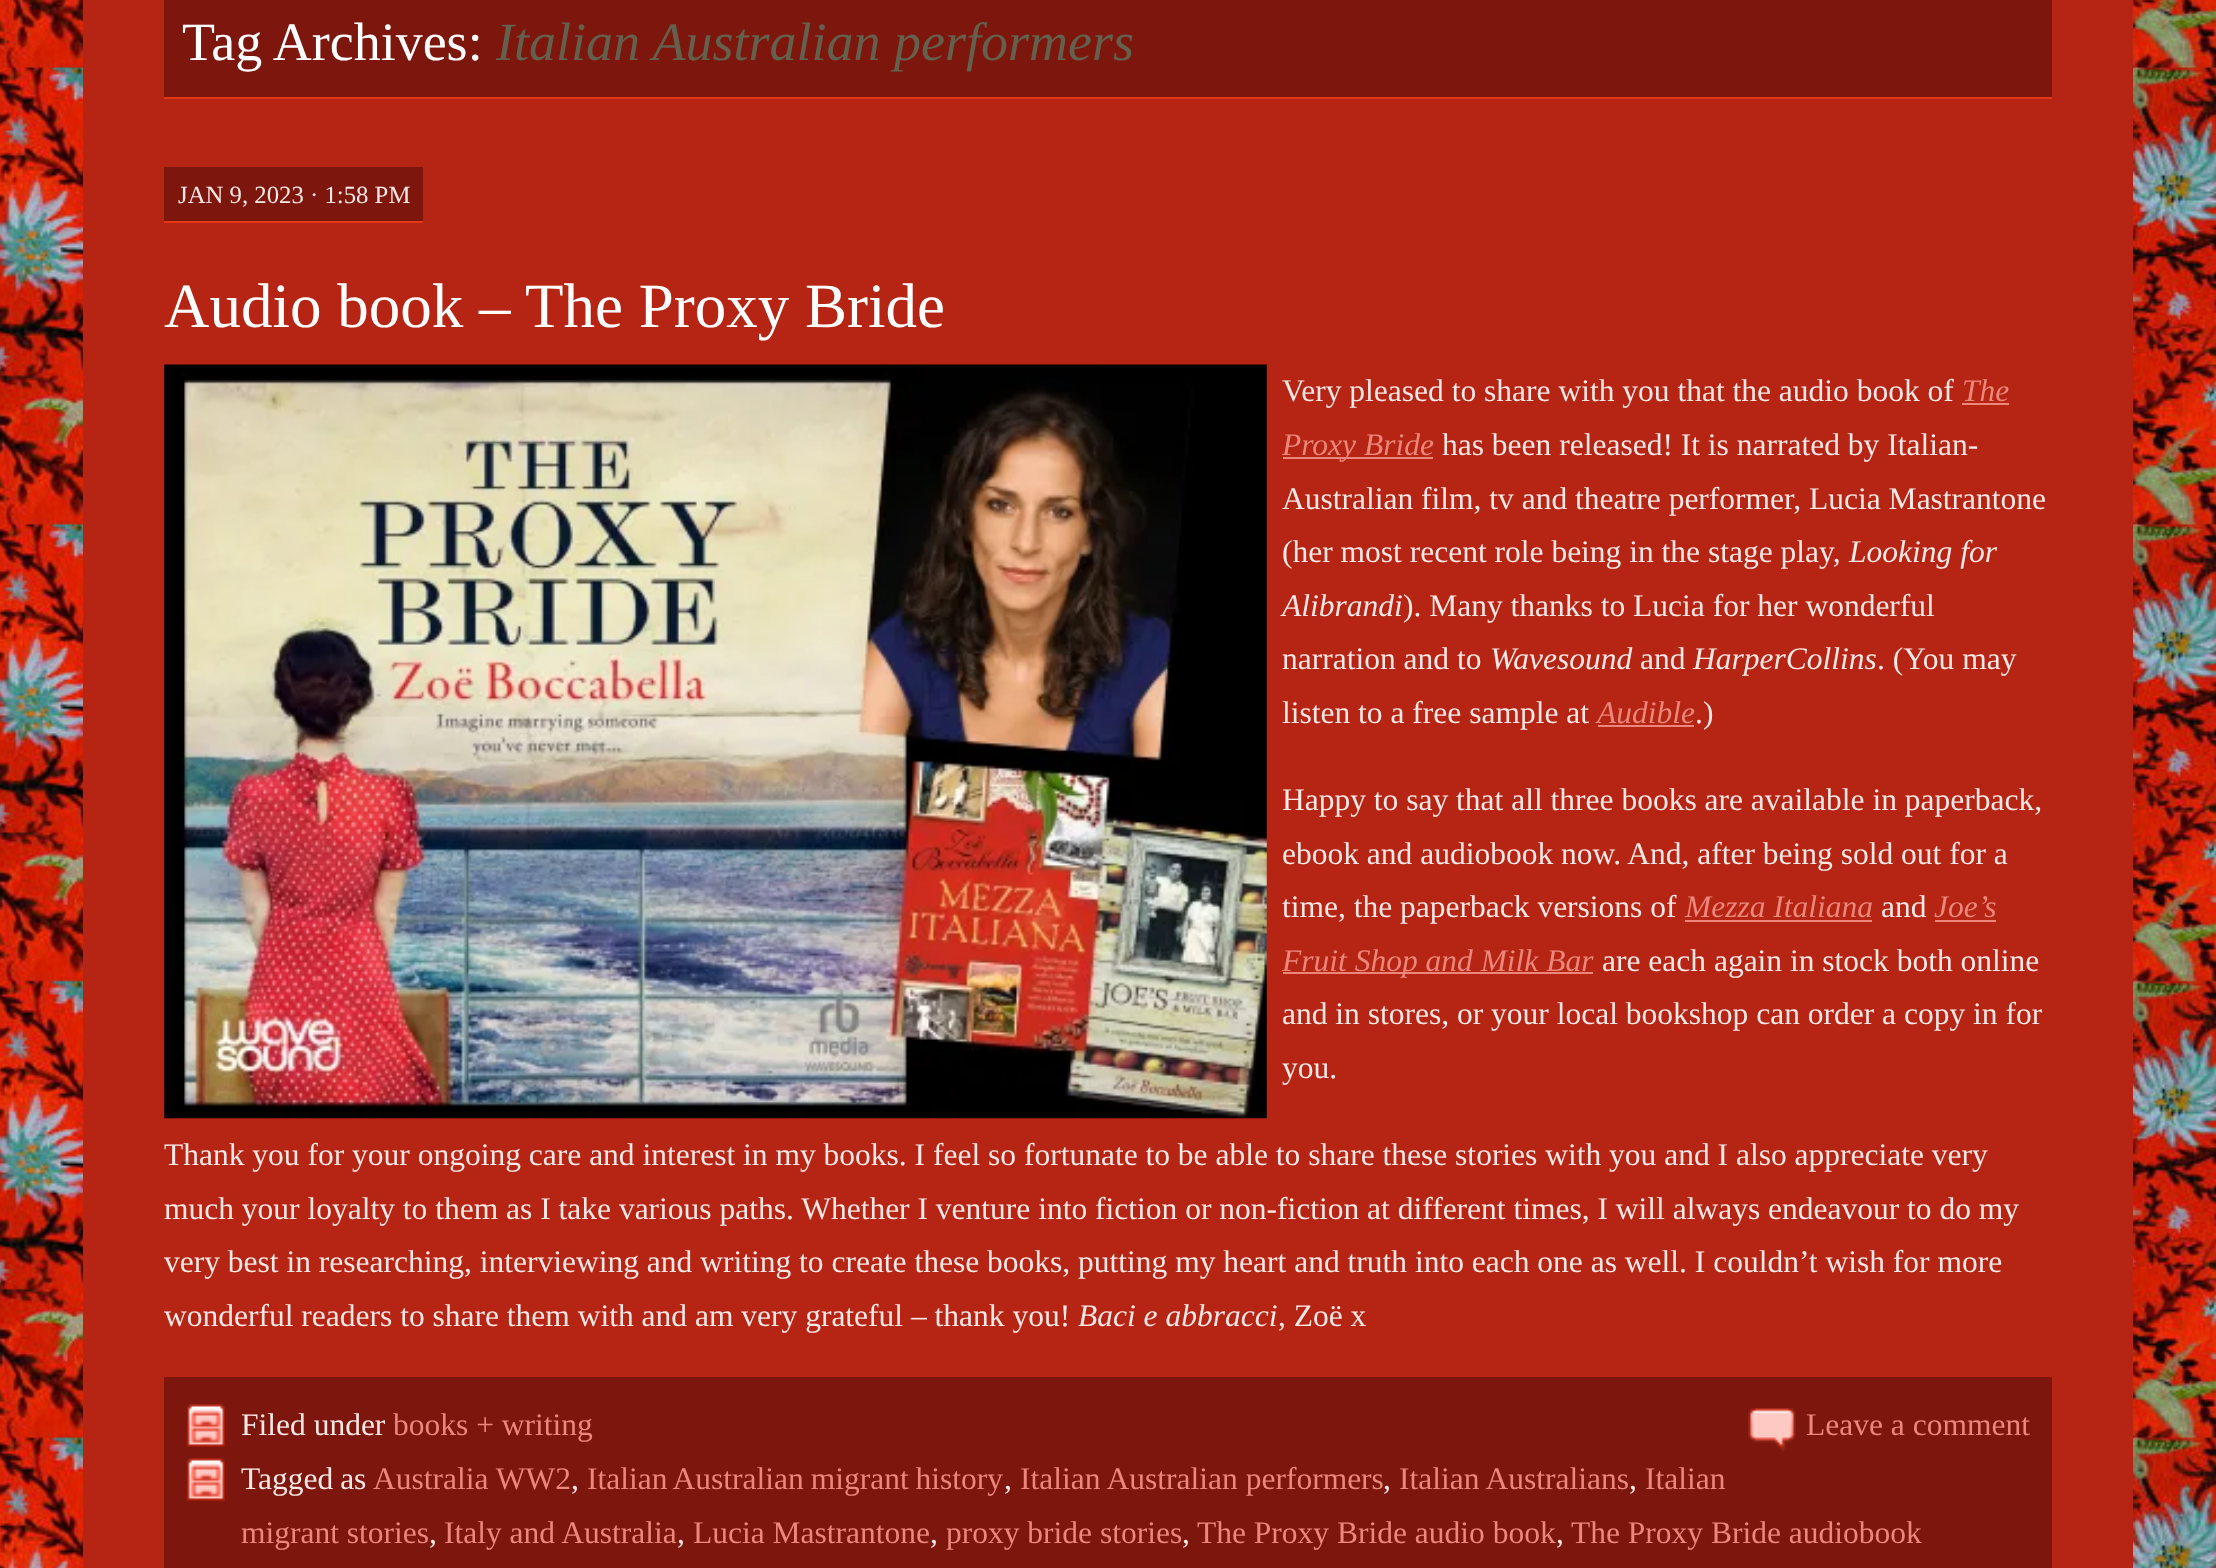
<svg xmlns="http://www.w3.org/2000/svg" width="2216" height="1568">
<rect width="100%" height="100%" fill="#fff"/>
<image x="0" y="0" width="2216" height="1568" href="media/1.png"/>
<rect x="83" width="2050" height="1568" fill="#b62413"/>
<rect x="164" width="1888" height="97" fill="#7d170d"/>
<rect x="164" y="97" width="1888" height="2" fill="#e23817"/>
<text x="182" y="60" style="font-family:Liberation Serif;font-size:54px;fill:#fff">Tag Archives:</text>
<text x="496" y="60" style="font-family:Liberation Serif;font-size:54px;font-style:italic;fill:#64604e">Italian Australian performers</text>
<rect x="164" y="167" width="259" height="54" fill="#7d170d"/>
<rect x="164" y="221" width="259" height="2" fill="#e23817"/>
<text x="178" y="203" style="font-family:Liberation Serif;font-size:24.75px;fill:#fae8e6">JAN 9, 2023 · 1:58 PM</text>
<text x="164" y="327" style="font-family:Liberation Serif;font-size:63px;fill:#fff">Audio book – The Proxy Bride</text>
<image x="164" y="364" width="1103" height="755" href="media/2.png"/>
<text x="1282" y="401" style="font-family:Liberation Serif;font-size:31.5px;fill:#fae8e6">Very pleased to share with you that the audio book of</text>
<text x="1962" y="401" style="font-family:Liberation Serif;font-size:31.5px;font-style:italic;fill:#eb877b">The</text>
<rect x="1962" y="403" width="47" height="2" fill="#eb877b"/>
<rect x="1283" y="457" width="150" height="2" fill="#eb877b"/>
<text x="1282" y="455" style="font-family:Liberation Serif;font-size:31.5px;font-style:italic;fill:#eb877b">Proxy Bride</text>
<text x="1442" y="455" style="font-family:Liberation Serif;font-size:31.5px;fill:#fae8e6">has been released! It is narrated by Italian-</text>
<text x="1282" y="509" style="font-family:Liberation Serif;font-size:31.5px;fill:#fae8e6">Australian film, tv and theatre performer, Lucia Mastrantone</text>
<text x="1282" y="562" style="font-family:Liberation Serif;font-size:31.5px;fill:#fae8e6">(her most recent role being in the stage play,</text>
<text x="1849" y="562" style="font-family:Liberation Serif;font-size:31.5px;font-style:italic;fill:#fae8e6">Looking for</text>
<text x="1282" y="616" style="font-family:Liberation Serif;font-size:31.5px;font-style:italic;fill:#fae8e6">Alibrandi</text>
<text x="1403" y="616" style="font-family:Liberation Serif;font-size:31.5px;fill:#fae8e6">). Many thanks to Lucia for her wonderful</text>
<text x="1282" y="669" style="font-family:Liberation Serif;font-size:31.5px;fill:#fae8e6">narration and to</text>
<text x="1490" y="669" style="font-family:Liberation Serif;font-size:31.5px;font-style:italic;fill:#fae8e6">Wavesound</text>
<text x="1640" y="669" style="font-family:Liberation Serif;font-size:31.5px;fill:#fae8e6">and</text>
<text x="1693" y="669" style="font-family:Liberation Serif;font-size:31.5px;font-style:italic;fill:#fae8e6">HarperCollins</text>
<text x="1877" y="669" style="font-family:Liberation Serif;font-size:31.5px;fill:#fae8e6">. (You may</text>
<text x="1282" y="723" style="font-family:Liberation Serif;font-size:31.5px;fill:#fae8e6">listen to a free sample at</text>
<text x="1597" y="723" style="font-family:Liberation Serif;font-size:31.5px;font-style:italic;fill:#eb877b">Audible</text>
<rect x="1598" y="725" width="96" height="2" fill="#eb877b"/>
<text x="1695" y="723" style="font-family:Liberation Serif;font-size:31.5px;fill:#fae8e6">.)</text>
<text x="1282" y="810" style="font-family:Liberation Serif;font-size:31.5px;fill:#fae8e6">Happy to say that all three books are available in paperback,</text>
<text x="1282" y="864" style="font-family:Liberation Serif;font-size:31.5px;fill:#fae8e6">ebook and audiobook now. And, after being sold out for a</text>
<text x="1282" y="917" style="font-family:Liberation Serif;font-size:31.5px;fill:#fae8e6">time, the paperback versions of</text>
<text x="1685" y="917" style="font-family:Liberation Serif;font-size:31.5px;font-style:italic;fill:#eb877b">Mezza Italiana</text>
<rect x="1685" y="920" width="187" height="2" fill="#eb877b"/>
<text x="1881" y="917" style="font-family:Liberation Serif;font-size:31.5px;fill:#fae8e6">and</text>
<text x="1934" y="917" style="font-family:Liberation Serif;font-size:31.5px;font-style:italic;fill:#eb877b">Joe’s</text>
<rect x="1935" y="920" width="61" height="2" fill="#eb877b"/>
<rect x="1283" y="972" width="310" height="2" fill="#eb877b"/>
<text x="1282" y="971" style="font-family:Liberation Serif;font-size:31.5px;font-style:italic;fill:#eb877b">Fruit Shop and Milk Bar</text>
<text x="1602" y="971" style="font-family:Liberation Serif;font-size:31.5px;fill:#fae8e6">are each again in stock both online</text>
<text x="1282" y="1024" style="font-family:Liberation Serif;font-size:31.5px;fill:#fae8e6">and in stores, or your local bookshop can order a copy in for</text>
<text x="1282" y="1078" style="font-family:Liberation Serif;font-size:31.5px;fill:#fae8e6">you.</text>
<text x="164" y="1165" style="font-family:Liberation Serif;font-size:31.5px;fill:#fae8e6">Thank you for your ongoing care and interest in my books. I feel so fortunate to be able to share these stories with you and I also appreciate very</text>
<text x="164" y="1219" style="font-family:Liberation Serif;font-size:31.5px;fill:#fae8e6">much your loyalty to them as I take various paths. Whether I venture into fiction or non-fiction at different times, I will always endeavour to do my</text>
<text x="164" y="1272" style="font-family:Liberation Serif;font-size:31.5px;fill:#fae8e6">very best in researching, interviewing and writing to create these books, putting my heart and truth into each one as well. I couldn’t wish for more</text>
<text x="164" y="1326" style="font-family:Liberation Serif;font-size:31.5px;fill:#fae8e6">wonderful readers to share them with and am very grateful – thank you!</text>
<text x="1078" y="1326" style="font-family:Liberation Serif;font-size:31.5px;font-style:italic;fill:#fae8e6">Baci e abbracci</text>
<text x="1278" y="1326" style="font-family:Liberation Serif;font-size:31.5px;fill:#fae8e6">, Zoë x</text>
<rect x="164" y="1377" width="1888" height="191" fill="#7d170d"/>
<image x="186" y="1404" width="39" height="43" href="media/3.png"/>
<text x="241" y="1435" style="font-family:Liberation Serif;font-size:31.5px;fill:#fae8e6">Filed under</text>
<text x="393" y="1435" style="font-family:Liberation Serif;font-size:31.5px;fill:#eb877b">books + writing</text>
<image x="1748" y="1408" width="48" height="43" href="media/4.png"/>
<text x="1806" y="1435" style="font-family:Liberation Serif;font-size:31.5px;fill:#eb877b">Leave a comment</text>
<image x="186" y="1458" width="39" height="43" href="media/3.png"/>
<text x="241" y="1489" word-spacing="-1" style="font-family:Liberation Serif;font-size:31.5px;fill:#fae8e6">Tagged as</text>
<text x="373" y="1489" style="font-family:Liberation Serif;font-size:31.5px;fill:#eb877b">Australia WW2</text>
<text x="571" y="1489" style="font-family:Liberation Serif;font-size:31.5px;fill:#fae8e6">,</text>
<text x="587" y="1489" word-spacing="-1" style="font-family:Liberation Serif;font-size:31.5px;fill:#eb877b">Italian Australian migrant history</text>
<text x="1004" y="1489" style="font-family:Liberation Serif;font-size:31.5px;fill:#fae8e6">,</text>
<text x="1020" y="1489" style="font-family:Liberation Serif;font-size:31.5px;fill:#eb877b">Italian Australian performers</text>
<text x="1383" y="1489" style="font-family:Liberation Serif;font-size:31.5px;fill:#fae8e6">,</text>
<text x="1399" y="1489" style="font-family:Liberation Serif;font-size:31.5px;fill:#eb877b">Italian Australians</text>
<text x="1629" y="1489" style="font-family:Liberation Serif;font-size:31.5px;fill:#fae8e6">,</text>
<text x="1645" y="1489" style="font-family:Liberation Serif;font-size:31.5px;fill:#eb877b">Italian</text>
<text x="241" y="1543" style="font-family:Liberation Serif;font-size:31.5px;fill:#eb877b">migrant stories</text>
<text x="429" y="1543" style="font-family:Liberation Serif;font-size:31.5px;fill:#fae8e6">,</text>
<text x="444" y="1543" style="font-family:Liberation Serif;font-size:31.5px;fill:#eb877b">Italy and Australia</text>
<text x="677" y="1543" style="font-family:Liberation Serif;font-size:31.5px;fill:#fae8e6">,</text>
<text x="693" y="1543" style="font-family:Liberation Serif;font-size:31.5px;fill:#eb877b">Lucia Mastrantone</text>
<text x="930" y="1543" style="font-family:Liberation Serif;font-size:31.5px;fill:#fae8e6">,</text>
<text x="946" y="1543" style="font-family:Liberation Serif;font-size:31.5px;fill:#eb877b">proxy bride stories</text>
<text x="1182" y="1543" style="font-family:Liberation Serif;font-size:31.5px;fill:#fae8e6">,</text>
<text x="1197" y="1543" style="font-family:Liberation Serif;font-size:31.5px;fill:#eb877b">The Proxy Bride audio book</text>
<text x="1556" y="1543" style="font-family:Liberation Serif;font-size:31.5px;fill:#fae8e6">,</text>
<text x="1571" y="1543" style="font-family:Liberation Serif;font-size:31.5px;fill:#eb877b">The Proxy Bride audiobook</text>
</svg>
